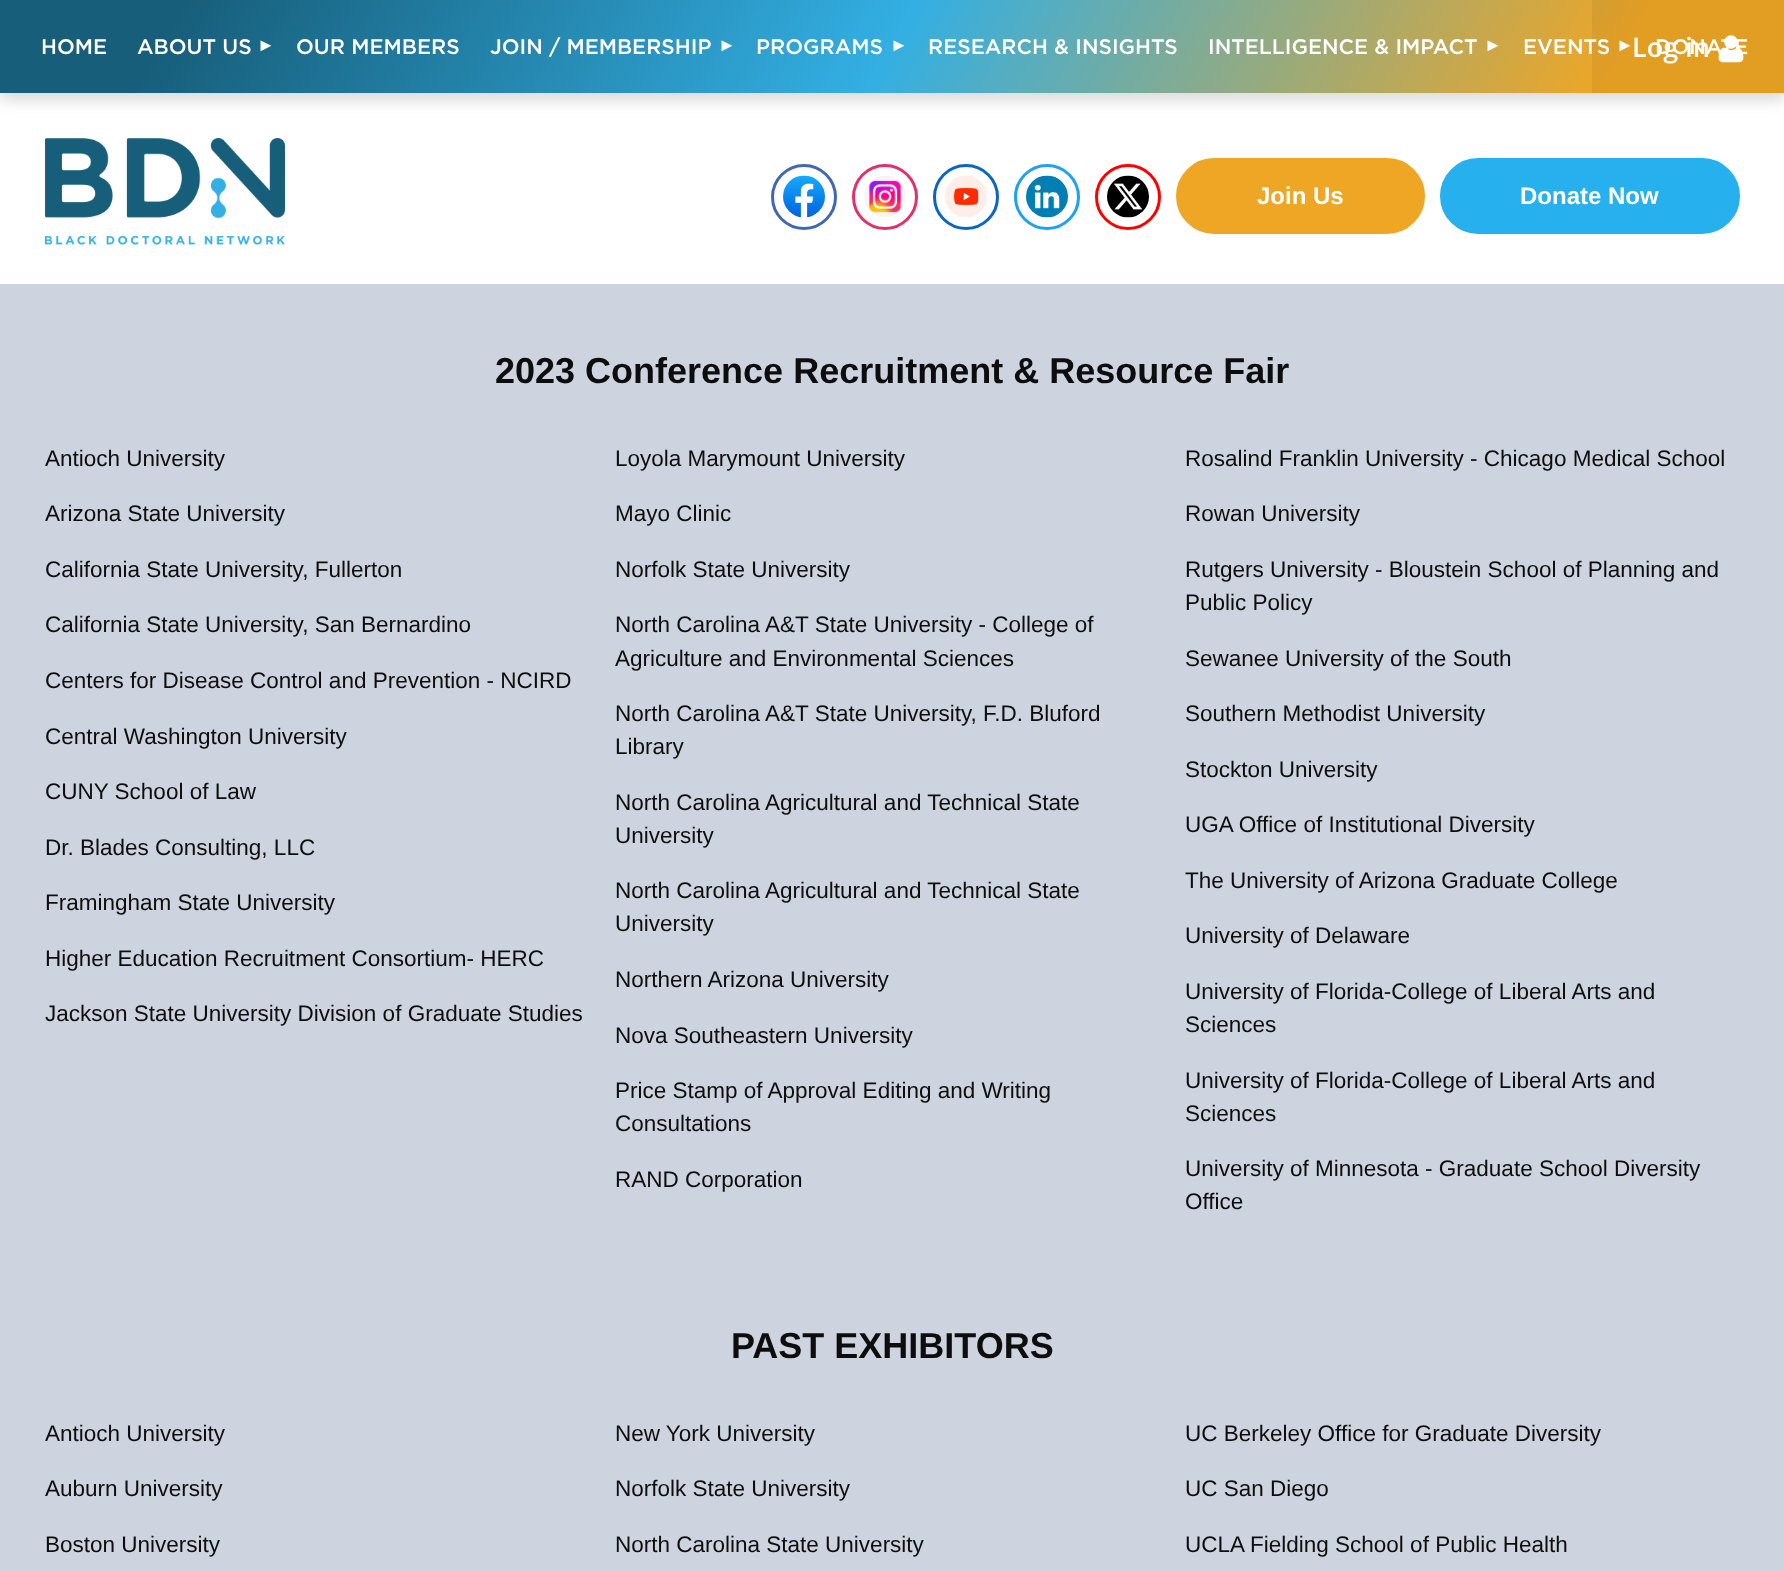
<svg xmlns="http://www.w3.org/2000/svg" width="1784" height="1571">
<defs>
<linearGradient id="g1" gradientUnits="userSpaceOnUse" x1="203" y1="-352" x2="1582" y2="445"><stop offset="0.1" stop-color="#175e7a"/><stop offset="0.5" stop-color="#33afe3"/><stop offset="0.9" stop-color="#efa625"/></linearGradient>
</defs>
<rect width="100%" height="100%" fill="#cdd4e0"/>
<rect y="93" width="1784" height="191" fill="#fff"/>
<rect y="8" width="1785" height="93" fill="#ddd" filter="blur(7px)"/>
<rect width="1784" height="93" fill="url(#g1)"/>
<rect x="1592" width="192" height="93" fill="#0000000d"/>
<text x="1655" y="54" style="font-family:Gotham;font-size:21px;font-weight:500;fill:#fff">DONATE</text>
<text x="1632" y="57" style="font-family:Open Sans;font-size:27px;font-weight:600;fill:#fff">Log in</text>
<image x="1718" y="35" width="26" height="28" href="media/1.png"/>
<text x="41" y="54" style="font-family:Gotham;font-size:21px;font-weight:500;fill:#fff">HOME</text>
<text x="137" y="54" style="font-family:Gotham;font-size:21px;font-weight:500;fill:#fff">ABOUT US</text>
<text x="257" y="51" style="font-family:Liberation Sans;font-size:18px;fill:#fff">►</text>
<text x="296" y="54" style="font-family:Gotham;font-size:21px;font-weight:500;fill:#fff">OUR MEMBERS</text>
<text x="490" y="54" style="font-family:Gotham;font-size:21px;font-weight:500;fill:#fff">JOIN / MEMBERSHIP</text>
<text x="718" y="51" style="font-family:Liberation Sans;font-size:18px;fill:#fff">►</text>
<text x="756" y="54" style="font-family:Gotham;font-size:21px;font-weight:500;fill:#fff">PROGRAMS</text>
<text x="890" y="51" style="font-family:Liberation Sans;font-size:18px;fill:#fff">►</text>
<text x="928" y="54" style="font-family:Gotham;font-size:21px;font-weight:500;fill:#fff">RESEARCH &amp; INSIGHTS</text>
<text x="1208" y="54" style="font-family:Gotham;font-size:21px;font-weight:500;fill:#fff">INTELLIGENCE &amp; IMPACT</text>
<text x="1484" y="51" style="font-family:Liberation Sans;font-size:18px;fill:#fff">►</text>
<text x="1523" y="54" style="font-family:Gotham;font-size:21px;font-weight:500;fill:#fff">EVENTS</text>
<text x="1616" y="51" style="font-family:Liberation Sans;font-size:18px;fill:#fff">►</text>
<image x="45" y="138" width="240" height="107" href="media/2.png"/>
<circle cx="804" cy="197" r="31.5" fill="none" stroke="#4267b2" stroke-width="3"/>
<image x="783" y="175" width="42" height="43" href="media/3.png"/>
<circle cx="885" cy="197" r="31.5" fill="none" stroke="#e1306c" stroke-width="3"/>
<image x="864" y="176" width="42" height="41" href="media/4.png"/>
<circle cx="966" cy="197" r="31.5" fill="none" stroke="#0a66c2" stroke-width="3"/>
<image x="945" y="175" width="42" height="43" href="media/5.png"/>
<circle cx="1047" cy="197" r="31.5" fill="none" stroke="#1da1f2" stroke-width="3"/>
<image x="1026" y="175" width="42" height="43" href="media/6.png"/>
<circle cx="1128" cy="197" r="31.5" fill="none" stroke="#f00" stroke-width="3"/>
<image x="1107" y="175" width="42" height="43" href="media/7.png"/>
<rect x="1179" y="161" width="243" height="70" rx="35" fill="#efa625" stroke="#efa625" stroke-width="6"/>
<text x="1257" y="204" style="font-family:Liberation Sans;font-size:24px;font-weight:bold;fill:#fff">Join Us</text>
<rect x="1443" y="161" width="294" height="70" rx="35" fill="#26b0ee" stroke="#26b0ee" stroke-width="6"/>
<text x="1520" y="204" style="font-family:Liberation Sans;font-size:24px;font-weight:bold;fill:#fff">Donate Now</text>
<text x="495" y="383" style="font-family:Liberation Sans;font-size:36px;font-weight:bold;fill:#0d0d0d">2023 Conference Recruitment &amp; Resource Fair</text>
<text x="45" y="466" style="font-family:Liberation Sans;font-size:22.5px;fill:#0d0d0d">Antioch University</text>
<text x="45" y="521" style="font-family:Liberation Sans;font-size:22.5px;fill:#0d0d0d">Arizona State University</text>
<text x="45" y="577" style="font-family:Liberation Sans;font-size:22.5px;fill:#0d0d0d">California State University, Fullerton</text>
<text x="45" y="632" style="font-family:Liberation Sans;font-size:22.5px;fill:#0d0d0d">California State University, San Bernardino</text>
<text x="45" y="688" style="font-family:Liberation Sans;font-size:22.5px;fill:#0d0d0d">Centers for Disease Control and Prevention - NCIRD</text>
<text x="45" y="744" style="font-family:Liberation Sans;font-size:22.5px;fill:#0d0d0d">Central Washington University</text>
<text x="45" y="799" style="font-family:Liberation Sans;font-size:22.5px;fill:#0d0d0d">CUNY School of Law</text>
<text x="45" y="855" style="font-family:Liberation Sans;font-size:22.5px;fill:#0d0d0d">Dr. Blades Consulting, LLC</text>
<text x="45" y="910" style="font-family:Liberation Sans;font-size:22.5px;fill:#0d0d0d">Framingham State University</text>
<text x="45" y="966" style="font-family:Liberation Sans;font-size:22.5px;fill:#0d0d0d">Higher Education Recruitment Consortium- HERC</text>
<text x="45" y="1021" style="font-family:Liberation Sans;font-size:22.5px;fill:#0d0d0d">Jackson State University Division of Graduate Studies</text>
<text x="615" y="466" style="font-family:Liberation Sans;font-size:22.5px;fill:#0d0d0d">Loyola Marymount University</text>
<text x="615" y="521" style="font-family:Liberation Sans;font-size:22.5px;fill:#0d0d0d">Mayo Clinic</text>
<text x="615" y="577" style="font-family:Liberation Sans;font-size:22.5px;fill:#0d0d0d">Norfolk State University</text>
<text x="615" y="632" style="font-family:Liberation Sans;font-size:22.5px;fill:#0d0d0d">North Carolina A&amp;T State University - College of</text>
<text x="615" y="666" style="font-family:Liberation Sans;font-size:22.5px;fill:#0d0d0d">Agriculture and Environmental Sciences</text>
<text x="615" y="721" style="font-family:Liberation Sans;font-size:22.5px;fill:#0d0d0d">North Carolina A&amp;T State University, F.D. Bluford</text>
<text x="615" y="754" style="font-family:Liberation Sans;font-size:22.5px;fill:#0d0d0d">Library</text>
<text x="615" y="810" style="font-family:Liberation Sans;font-size:22.5px;fill:#0d0d0d">North Carolina Agricultural and Technical State</text>
<text x="615" y="843" style="font-family:Liberation Sans;font-size:22.5px;fill:#0d0d0d">University</text>
<text x="615" y="898" style="font-family:Liberation Sans;font-size:22.5px;fill:#0d0d0d">North Carolina Agricultural and Technical State</text>
<text x="615" y="931" style="font-family:Liberation Sans;font-size:22.5px;fill:#0d0d0d">University</text>
<text x="615" y="987" style="font-family:Liberation Sans;font-size:22.5px;fill:#0d0d0d">Northern Arizona University</text>
<text x="615" y="1043" style="font-family:Liberation Sans;font-size:22.5px;fill:#0d0d0d">Nova Southeastern University</text>
<text x="615" y="1098" style="font-family:Liberation Sans;font-size:22.5px;fill:#0d0d0d">Price Stamp of Approval Editing and Writing</text>
<text x="615" y="1131" style="font-family:Liberation Sans;font-size:22.5px;fill:#0d0d0d">Consultations</text>
<text x="615" y="1187" style="font-family:Liberation Sans;font-size:22.5px;fill:#0d0d0d">RAND Corporation</text>
<text x="1185" y="466" style="font-family:Liberation Sans;font-size:22.5px;fill:#0d0d0d">Rosalind Franklin University - Chicago Medical School</text>
<text x="1185" y="521" style="font-family:Liberation Sans;font-size:22.5px;fill:#0d0d0d">Rowan University</text>
<text x="1185" y="577" style="font-family:Liberation Sans;font-size:22.5px;fill:#0d0d0d">Rutgers University - Bloustein School of Planning and</text>
<text x="1185" y="610" style="font-family:Liberation Sans;font-size:22.5px;fill:#0d0d0d">Public Policy</text>
<text x="1185" y="666" style="font-family:Liberation Sans;font-size:22.5px;fill:#0d0d0d">Sewanee University of the South</text>
<text x="1185" y="721" style="font-family:Liberation Sans;font-size:22.5px;fill:#0d0d0d">Southern Methodist University</text>
<text x="1185" y="777" style="font-family:Liberation Sans;font-size:22.5px;fill:#0d0d0d">Stockton University</text>
<text x="1185" y="832" style="font-family:Liberation Sans;font-size:22.5px;fill:#0d0d0d">UGA Office of Institutional Diversity</text>
<text x="1185" y="888" style="font-family:Liberation Sans;font-size:22.5px;fill:#0d0d0d">The University of Arizona Graduate College</text>
<text x="1185" y="943" style="font-family:Liberation Sans;font-size:22.5px;fill:#0d0d0d">University of Delaware</text>
<text x="1185" y="999" style="font-family:Liberation Sans;font-size:22.5px;fill:#0d0d0d">University of Florida-College of Liberal Arts and</text>
<text x="1185" y="1032" style="font-family:Liberation Sans;font-size:22.5px;fill:#0d0d0d">Sciences</text>
<text x="1185" y="1088" style="font-family:Liberation Sans;font-size:22.5px;fill:#0d0d0d">University of Florida-College of Liberal Arts and</text>
<text x="1185" y="1121" style="font-family:Liberation Sans;font-size:22.5px;fill:#0d0d0d">Sciences</text>
<text x="1185" y="1176" style="font-family:Liberation Sans;font-size:22.5px;fill:#0d0d0d">University of Minnesota - Graduate School Diversity</text>
<text x="1185" y="1209" style="font-family:Liberation Sans;font-size:22.5px;fill:#0d0d0d">Office</text>
<text x="731" y="1358" style="font-family:Liberation Sans;font-size:36px;font-weight:bold;fill:#0d0d0d">PAST EXHIBITORS</text>
<text x="45" y="1441" style="font-family:Liberation Sans;font-size:22.5px;fill:#0d0d0d">Antioch University</text>
<text x="45" y="1496" style="font-family:Liberation Sans;font-size:22.5px;fill:#0d0d0d">Auburn University</text>
<text x="45" y="1552" style="font-family:Liberation Sans;font-size:22.5px;fill:#0d0d0d">Boston University</text>
<text x="615" y="1441" style="font-family:Liberation Sans;font-size:22.5px;fill:#0d0d0d">New York University</text>
<text x="615" y="1496" style="font-family:Liberation Sans;font-size:22.5px;fill:#0d0d0d">Norfolk State University</text>
<text x="615" y="1552" style="font-family:Liberation Sans;font-size:22.5px;fill:#0d0d0d">North Carolina State University</text>
<text x="1185" y="1441" style="font-family:Liberation Sans;font-size:22.5px;fill:#0d0d0d">UC Berkeley Office for Graduate Diversity</text>
<text x="1185" y="1496" style="font-family:Liberation Sans;font-size:22.5px;fill:#0d0d0d">UC San Diego</text>
<text x="1185" y="1552" style="font-family:Liberation Sans;font-size:22.5px;fill:#0d0d0d">UCLA Fielding School of Public Health</text>
</svg>
